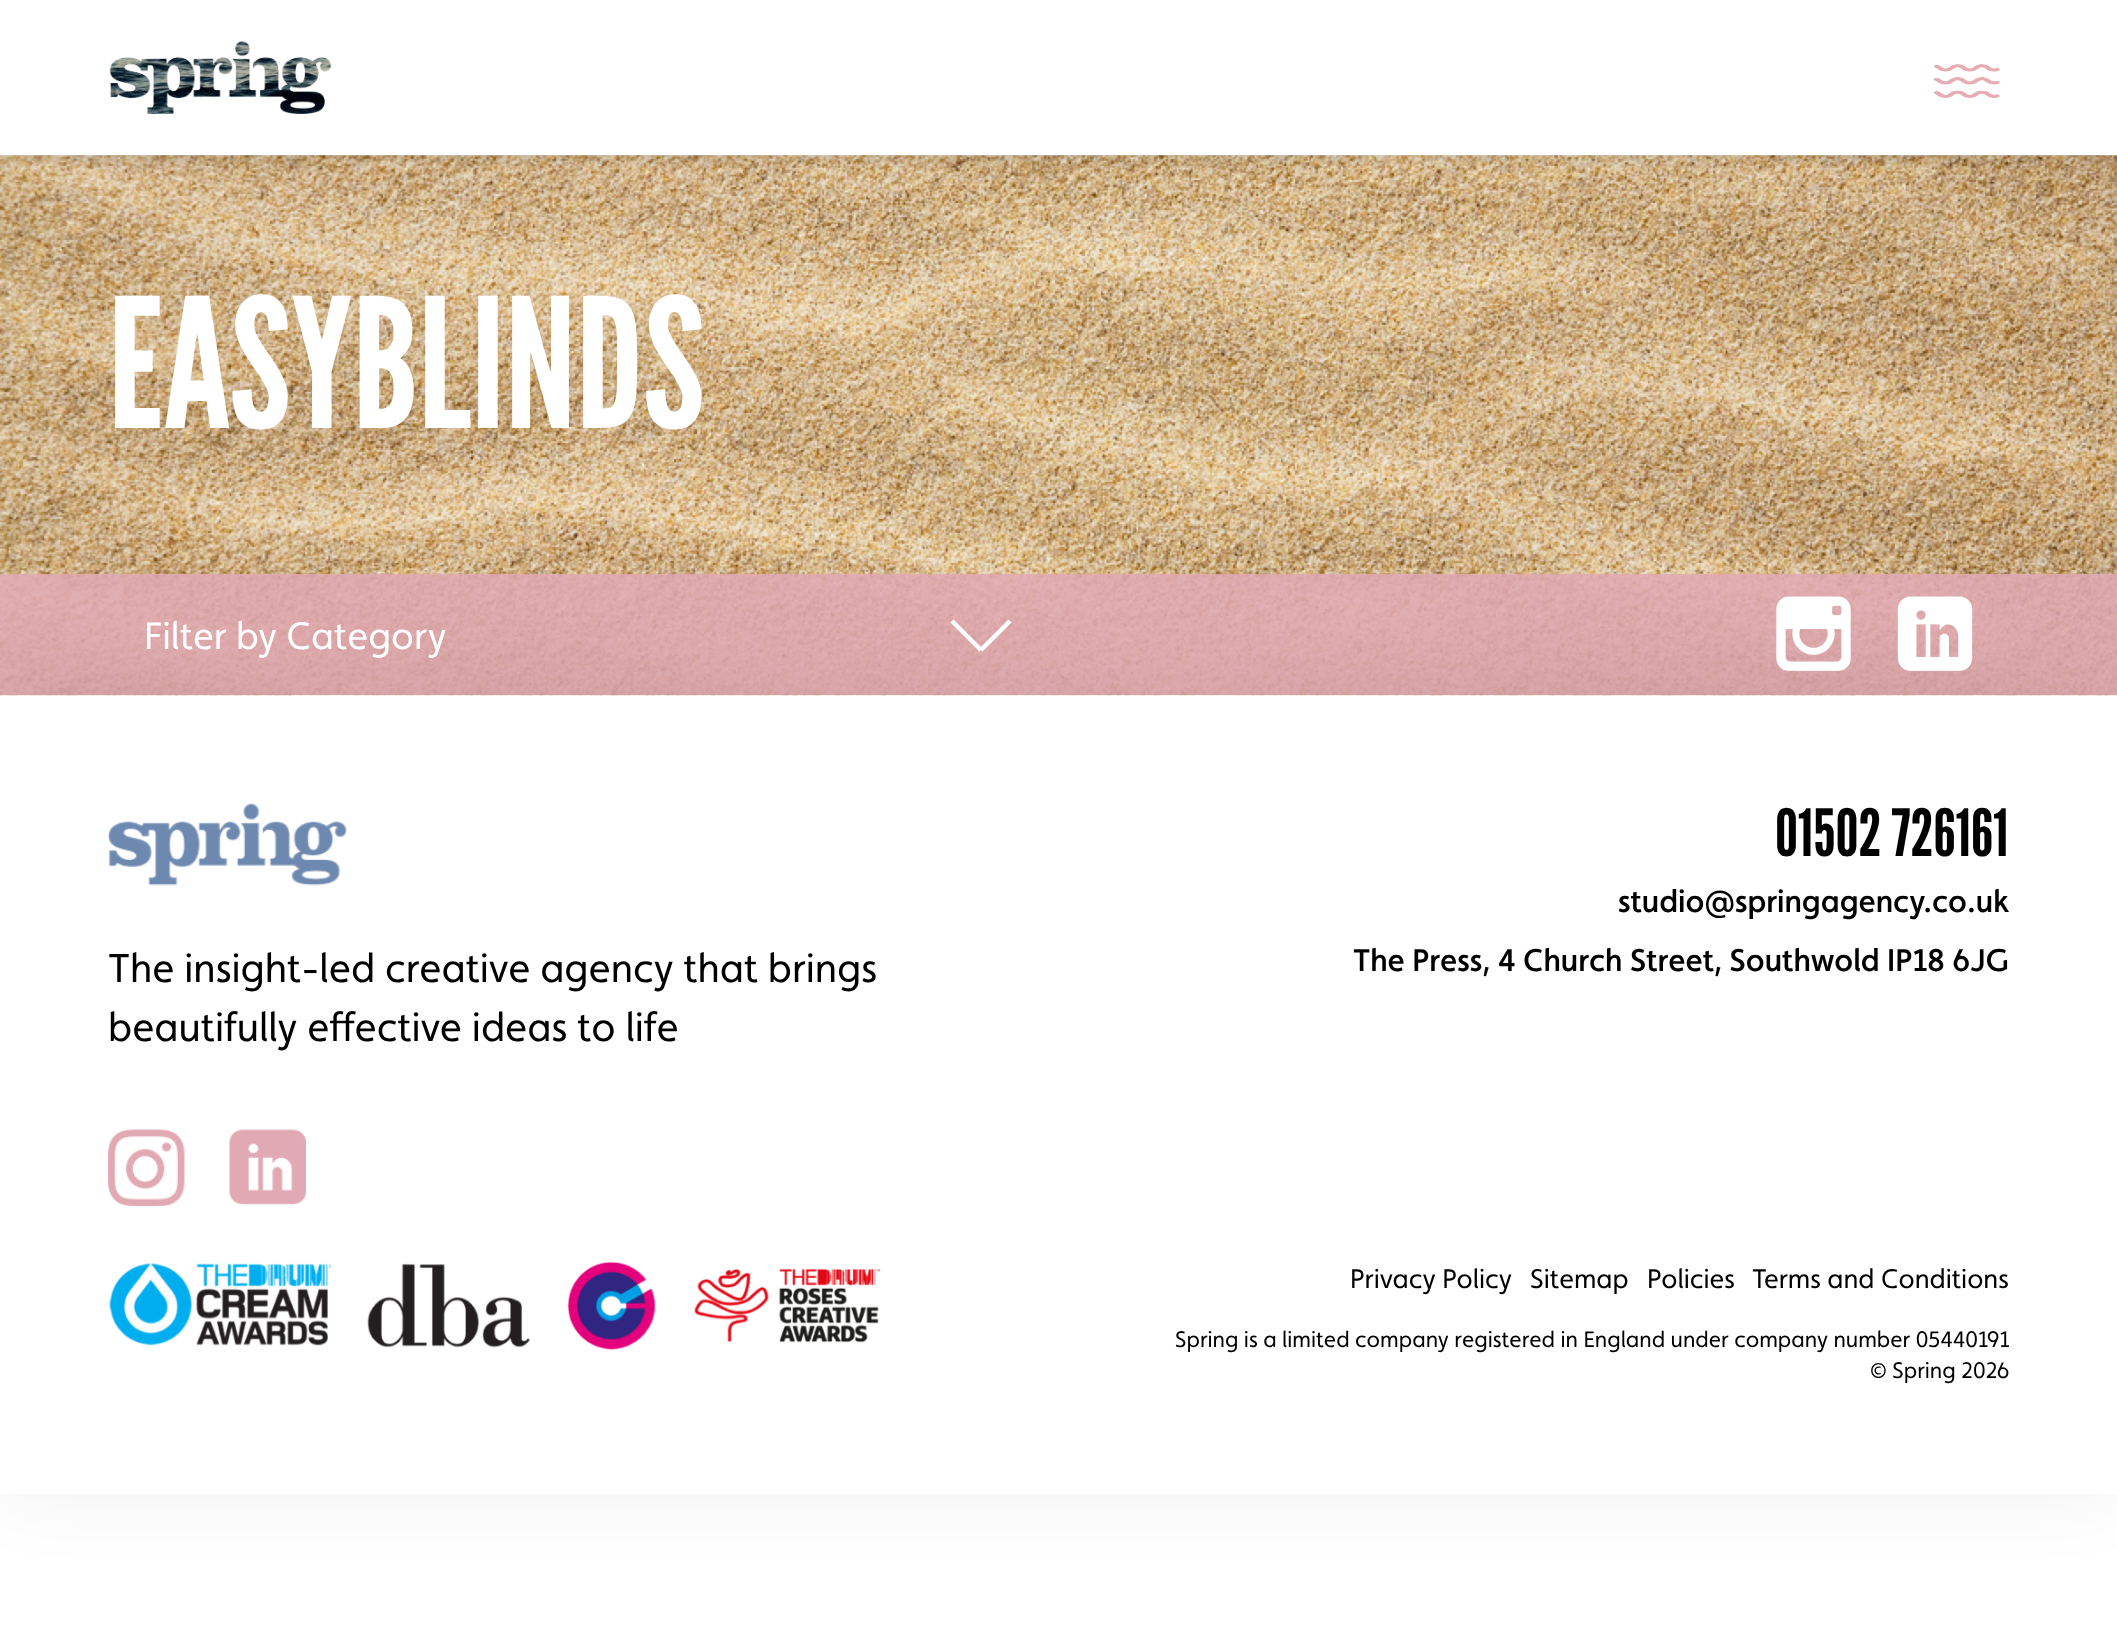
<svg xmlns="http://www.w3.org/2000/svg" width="2117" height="1627">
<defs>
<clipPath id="clip1"><rect x="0" y="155" width="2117" height="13"/></clipPath>
<clipPath id="clip2"><path d="M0 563h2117v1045h-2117zm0 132h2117v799h-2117z" clip-rule="evenodd"/></clipPath>
</defs>
<rect width="100%" height="100%" fill="#fff"/>
<image x="0" y="155" width="2117" height="541" href="media/3.png"/>
<g clip-path="url(#clip1)">
<rect width="2117" height="155" fill="#00000033" filter="blur(10px)"/>
</g>
<image x="109" y="41" width="223" height="73" href="media/1.png"/>
<image x="1933" y="64" width="67" height="34" href="media/2.png"/>
<text x="108" y="428" style="font-family:League Gothic;font-size:180px;fill:#fff">EASYBLINDS</text>
<rect y="574" width="2117" height="121" fill="#e1a9b3db"/>
<g clip-path="url(#clip2)">
<rect y="686" width="2117" height="799" fill="#00000014" filter="blur(40.5px)"/>
</g>
<path d="M952 621l29 29m0 0l29-29" fill="none" stroke="#fff" stroke-width="4.5"/>
<text x="144" y="649" style="font-family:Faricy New;font-size:38.25px;fill:#fff">Filter by Category</text>
<image x="1776" y="596" width="75" height="75" href="media/4.png"/>
<image x="1897" y="596" width="76" height="75" href="media/5.png"/>
<image x="108" y="803" width="239" height="83" href="media/6.png"/>
<text x="108" y="982" style="font-family:Faricy New;font-size:40.5px;fill:#000">The insight-led creative agency that brings</text>
<text x="108" y="1041" style="font-family:Faricy New;font-size:40.5px;fill:#000">beautifully effective ideas to life</text>
<image x="108" y="1129" width="77" height="77" href="media/7.png"/>
<image x="229" y="1129" width="77" height="76" href="media/8.png"/>
<image x="109" y="1263" width="222" height="83" href="media/9.png"/>
<image x="367" y="1263" width="163" height="85" href="media/10.png"/>
<image x="567" y="1261" width="89" height="89" href="media/11.png"/>
<image x="694" y="1268" width="187" height="75" href="media/12.png"/>
<text x="1775" y="856" style="font-family:League Gothic;font-size:65px;fill:#000">01502 726161</text>
<text x="1618" y="912" style="font-family:Faricy New;font-size:31.5px;font-weight:500;fill:#000">studio@springagency.co.uk</text>
<text x="1353" y="971" style="font-family:Faricy New;font-size:31.5px;font-weight:500;fill:#000">The Press, 4 Church Street, Southwold IP18 6JG</text>
<text x="1350" y="1288" style="font-family:Faricy New;font-size:27px;fill:#000">Privacy Policy</text>
<text x="1530" y="1288" style="font-family:Faricy New;font-size:27px;fill:#000">Sitemap</text>
<text x="1647" y="1288" style="font-family:Faricy New;font-size:27px;fill:#000">Policies</text>
<text x="1752" y="1288" style="font-family:Faricy New;font-size:27px;fill:#000">Terms and Conditions</text>
<text x="1175" y="1347" style="font-family:Faricy New;font-size:22.5px;fill:#000">Spring is a limited company registered in England under company number 05440191</text>
<text x="1870" y="1378" style="font-family:Faricy New;font-size:22.5px;fill:#000">© Spring 2026</text>
</svg>
